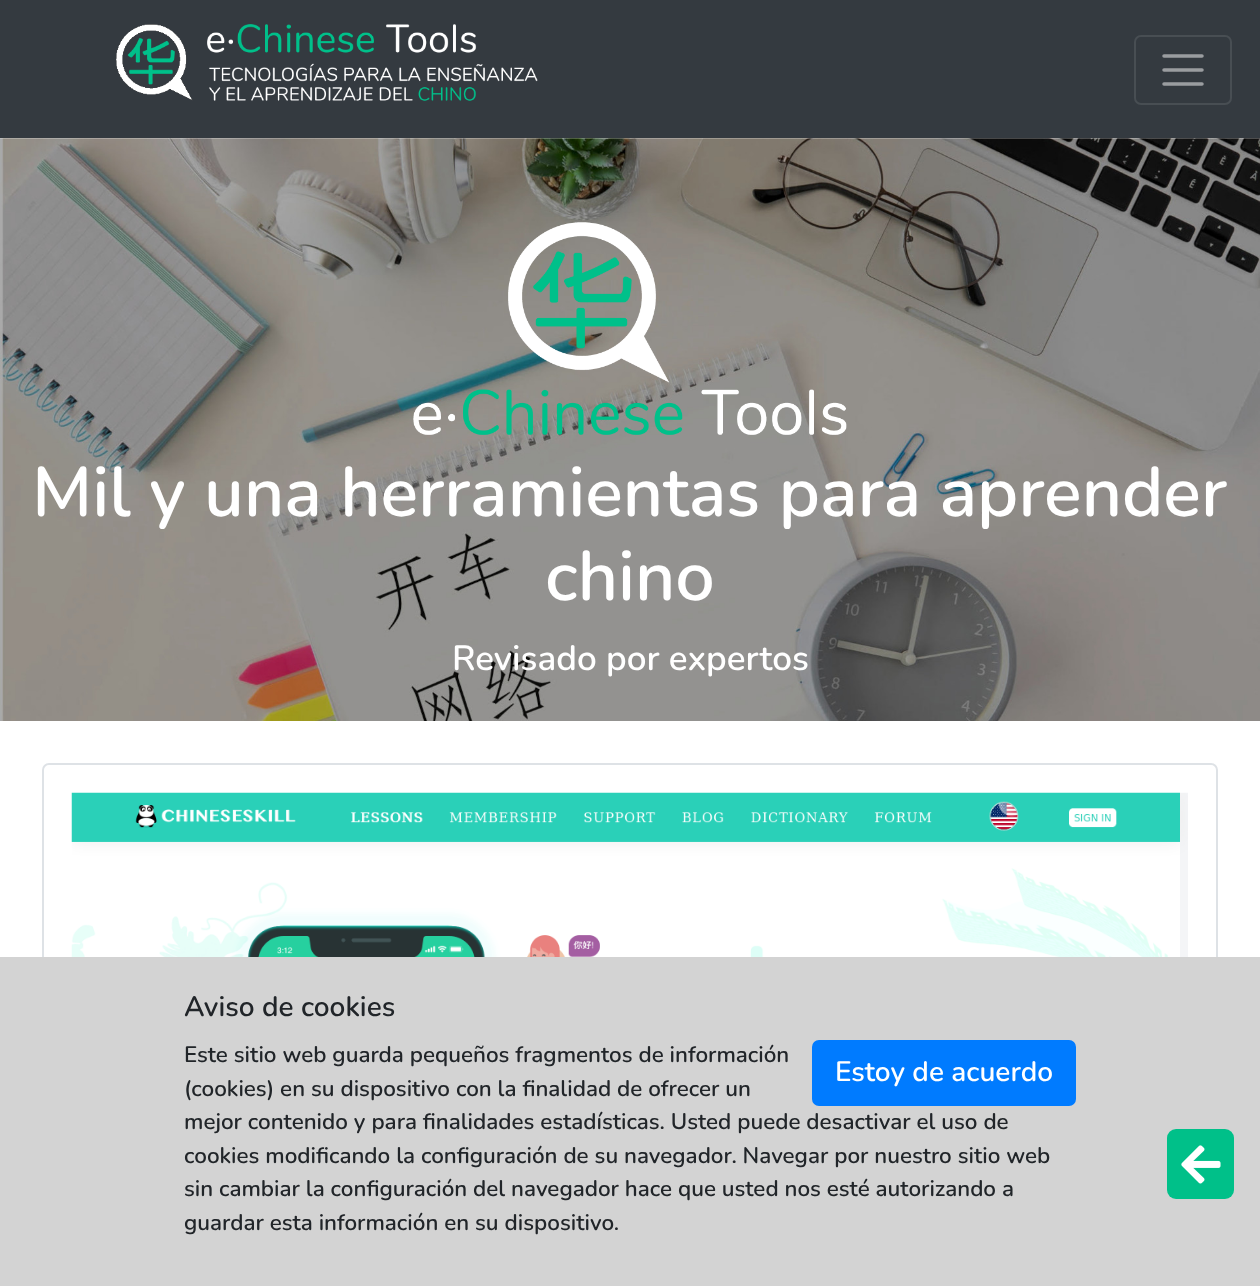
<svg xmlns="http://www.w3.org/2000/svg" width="1260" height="1286">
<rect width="100%" height="100%" fill="#fff"/>
<rect width="1260" height="138" fill="#343a40"/>
<image x="116" y="24" width="422" height="77" href="media/1.png"/>
<rect x="1135" y="36" width="96" height="68" rx="6" fill="none" stroke="#484e53" stroke-width="2"/>
<path d="M1164 56h38m-38 14h38m-38 14h38" fill="none" stroke="#9a9da0" stroke-width="3.5" stroke-linecap="round"/>
<image x="0" y="138" width="1260" height="583" href="media/2.png"/>
<image x="413" y="222" width="434" height="213" href="media/3.png"/>
<text x="32" y="516" style="font-family:Nunito;font-size:70px;font-weight:600;fill:#fff">Mil y una herramientas para aprender</text>
<text x="545" y="600" style="font-family:Nunito;font-size:70px;font-weight:600;fill:#fff">chino</text>
<text x="452" y="670" style="font-family:Nunito;font-size:35px;font-weight:600;fill:#fff">Revisado por expertos</text>
<rect x="43" y="764" width="1174" height="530" rx="6" fill="none" stroke="#dee2e6" stroke-width="2"/>
<image x="71" y="792" width="1117" height="165" href="media/4.png"/>
<rect y="957" width="1260" height="329" fill="#d3d3d3"/>
<rect x="1167" y="1129" width="67" height="70" rx="9" fill="#00c089"/>
<image x="1181" y="1145" width="40" height="39" href="media/5.png"/>
<text x="184" y="1016" style="font-family:Nunito;font-size:28px;font-weight:600;fill:#212529">Aviso de cookies</text>
<text x="184" y="1062" style="font-family:Nunito;font-size:22.4px;font-weight:600;fill:#212529">Este sitio web guarda pequeños fragmentos de información</text>
<rect x="813" y="1041" width="262" height="64" rx="6" fill="#007bff" stroke="#007bff" stroke-width="2"/>
<text x="835" y="1081" style="font-family:Nunito;font-size:28px;font-weight:600;fill:#fff">Estoy de acuerdo</text>
<text x="184" y="1096" style="font-family:Nunito;font-size:22.4px;font-weight:600;fill:#212529">(cookies) en su dispositivo con la finalidad de ofrecer un</text>
<text x="184" y="1129" style="font-family:Nunito;font-size:22.4px;font-weight:600;fill:#212529">mejor contenido y para finalidades estadísticas. Usted puede desactivar el uso de</text>
<text x="184" y="1163" style="font-family:Nunito;font-size:22.4px;font-weight:600;fill:#212529">cookies modificando la configuración de su navegador. Navegar por nuestro sitio web</text>
<text x="184" y="1196" style="font-family:Nunito;font-size:22.4px;font-weight:600;fill:#212529">sin cambiar la configuración del navegador hace que usted nos esté autorizando a</text>
<text x="184" y="1230" style="font-family:Nunito;font-size:22.4px;font-weight:600;fill:#212529">guardar esta información en su dispositivo.</text>
</svg>
